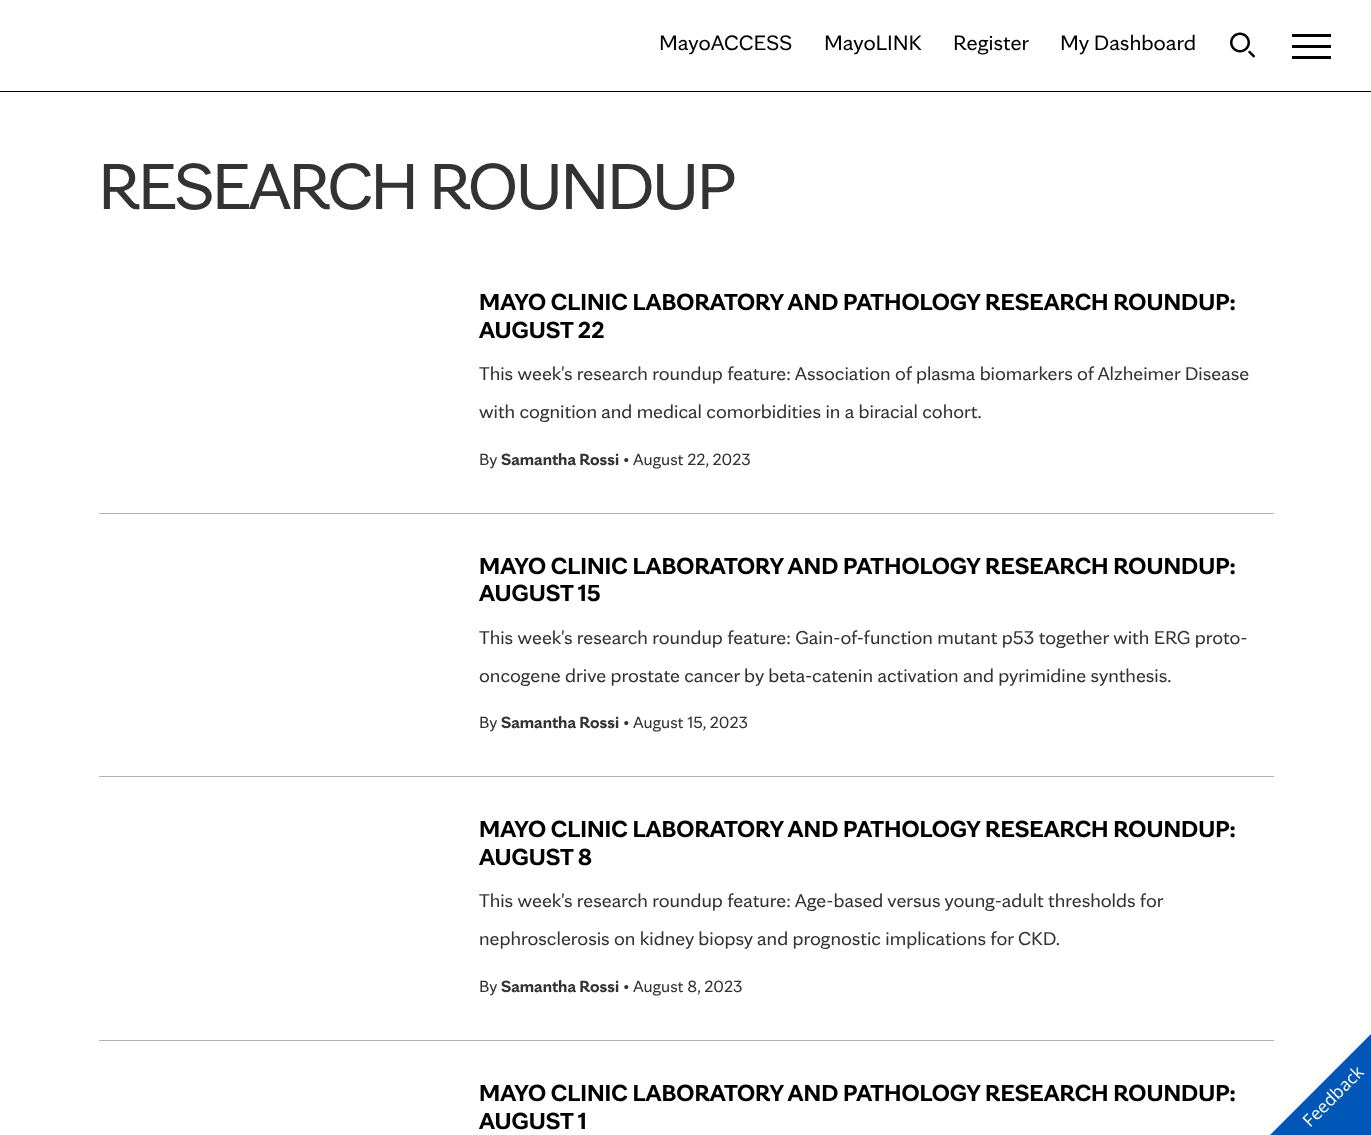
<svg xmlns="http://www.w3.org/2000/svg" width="1371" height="1135">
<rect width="100%" height="100%" fill="#fff"/>
<rect y="91" width="1371" height="1" fill="#000"/>
<text x="659" y="50" style="font-family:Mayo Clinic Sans;font-size:22.5px;fill:#000">MayoACCESS</text>
<text x="824" y="50" style="font-family:Mayo Clinic Sans;font-size:22.5px;fill:#000">MayoLINK</text>
<text x="953" y="50" style="font-family:Mayo Clinic Sans;font-size:22.5px;fill:#000">Register</text>
<text x="1060" y="50" style="font-family:Mayo Clinic Sans;font-size:22.5px;fill:#000">My Dashboard</text>
<image x="1230" y="32" width="25" height="26" href="media/1.png"/>
<rect x="1292" y="34" width="39" height="3" fill="#000"/>
<rect x="1292" y="45" width="39" height="3" fill="#000"/>
<rect x="1292" y="56" width="39" height="3" fill="#000"/>
<text x="98" y="209" style="font-family:Mayo Clinic Sans;font-size:70px;letter-spacing:-2.75px;fill:#333">RESEARCH ROUNDUP</text>
<rect x="99" y="513" width="1175" height="1" fill="#b3b3b3"/>
<text x="479" y="310" style="font-family:Mayo Clinic Sans;font-size:25px;font-weight:bold;fill:#000">MAYO CLINIC LABORATORY AND PATHOLOGY RESEARCH ROUNDUP:</text>
<text x="479" y="338" style="font-family:Mayo Clinic Sans;font-size:25px;font-weight:bold;fill:#000">AUGUST 22</text>
<text x="479" y="380" style="font-family:Mayo Clinic Sans;font-size:20px;fill:#333">This week's research roundup feature: Association of plasma biomarkers of Alzheimer Disease</text>
<text x="479" y="418" style="font-family:Mayo Clinic Sans;font-size:20px;fill:#333">with cognition and medical comorbidities in a biracial cohort.</text>
<text x="479" y="465" style="font-family:Mayo Clinic Sans;font-size:17.5px;fill:#333">By</text>
<text x="501" y="465" style="font-family:Mayo Clinic Sans;font-size:17.5px;font-weight:bold;fill:#333">Samantha Rossi</text>
<text x="623" y="465" style="font-family:Mayo Clinic Sans;font-size:17.5px;fill:#333">• August 22, 2023</text>
<rect x="99" y="776" width="1175" height="1" fill="#b3b3b3"/>
<text x="479" y="574" style="font-family:Mayo Clinic Sans;font-size:25px;font-weight:bold;fill:#000">MAYO CLINIC LABORATORY AND PATHOLOGY RESEARCH ROUNDUP:</text>
<text x="479" y="601" style="font-family:Mayo Clinic Sans;font-size:25px;font-weight:bold;fill:#000">AUGUST 15</text>
<text x="479" y="644" style="font-family:Mayo Clinic Sans;font-size:20px;fill:#333">This week's research roundup feature: Gain-of-function mutant p53 together with ERG proto-</text>
<text x="479" y="682" style="font-family:Mayo Clinic Sans;font-size:20px;fill:#333">oncogene drive prostate cancer by beta-catenin activation and pyrimidine synthesis.</text>
<text x="479" y="728" style="font-family:Mayo Clinic Sans;font-size:17.5px;fill:#333">By</text>
<text x="501" y="728" style="font-family:Mayo Clinic Sans;font-size:17.5px;font-weight:bold;fill:#333">Samantha Rossi</text>
<text x="623" y="728" style="font-family:Mayo Clinic Sans;font-size:17.5px;fill:#333">• August 15, 2023</text>
<rect x="99" y="1040" width="1175" height="1" fill="#b3b3b3"/>
<text x="479" y="837" style="font-family:Mayo Clinic Sans;font-size:25px;font-weight:bold;fill:#000">MAYO CLINIC LABORATORY AND PATHOLOGY RESEARCH ROUNDUP:</text>
<text x="479" y="865" style="font-family:Mayo Clinic Sans;font-size:25px;font-weight:bold;fill:#000">AUGUST 8</text>
<text x="479" y="907" style="font-family:Mayo Clinic Sans;font-size:20px;fill:#333">This week's research roundup feature: Age-based versus young-adult thresholds for</text>
<text x="479" y="945" style="font-family:Mayo Clinic Sans;font-size:20px;fill:#333">nephrosclerosis on kidney biopsy and prognostic implications for CKD.</text>
<text x="479" y="992" style="font-family:Mayo Clinic Sans;font-size:17.5px;fill:#333">By</text>
<text x="501" y="992" style="font-family:Mayo Clinic Sans;font-size:17.5px;font-weight:bold;fill:#333">Samantha Rossi</text>
<text x="623" y="992" style="font-family:Mayo Clinic Sans;font-size:17.5px;fill:#333">• August 8, 2023</text>
<text x="479" y="1101" style="font-family:Mayo Clinic Sans;font-size:25px;font-weight:bold;fill:#000">MAYO CLINIC LABORATORY AND PATHOLOGY RESEARCH ROUNDUP:</text>
<text x="479" y="1129" style="font-family:Mayo Clinic Sans;font-size:25px;font-weight:bold;fill:#000">AUGUST 1</text>
<path d="M1371 1135h-101l101-101z" fill="#0057b8"/>
<text x="1310" y="1128" transform="rotate(-45 1310 1128)" style="font-family:Open Sans;font-size:17.5px;fill:#fff">Feedback</text>
</svg>
